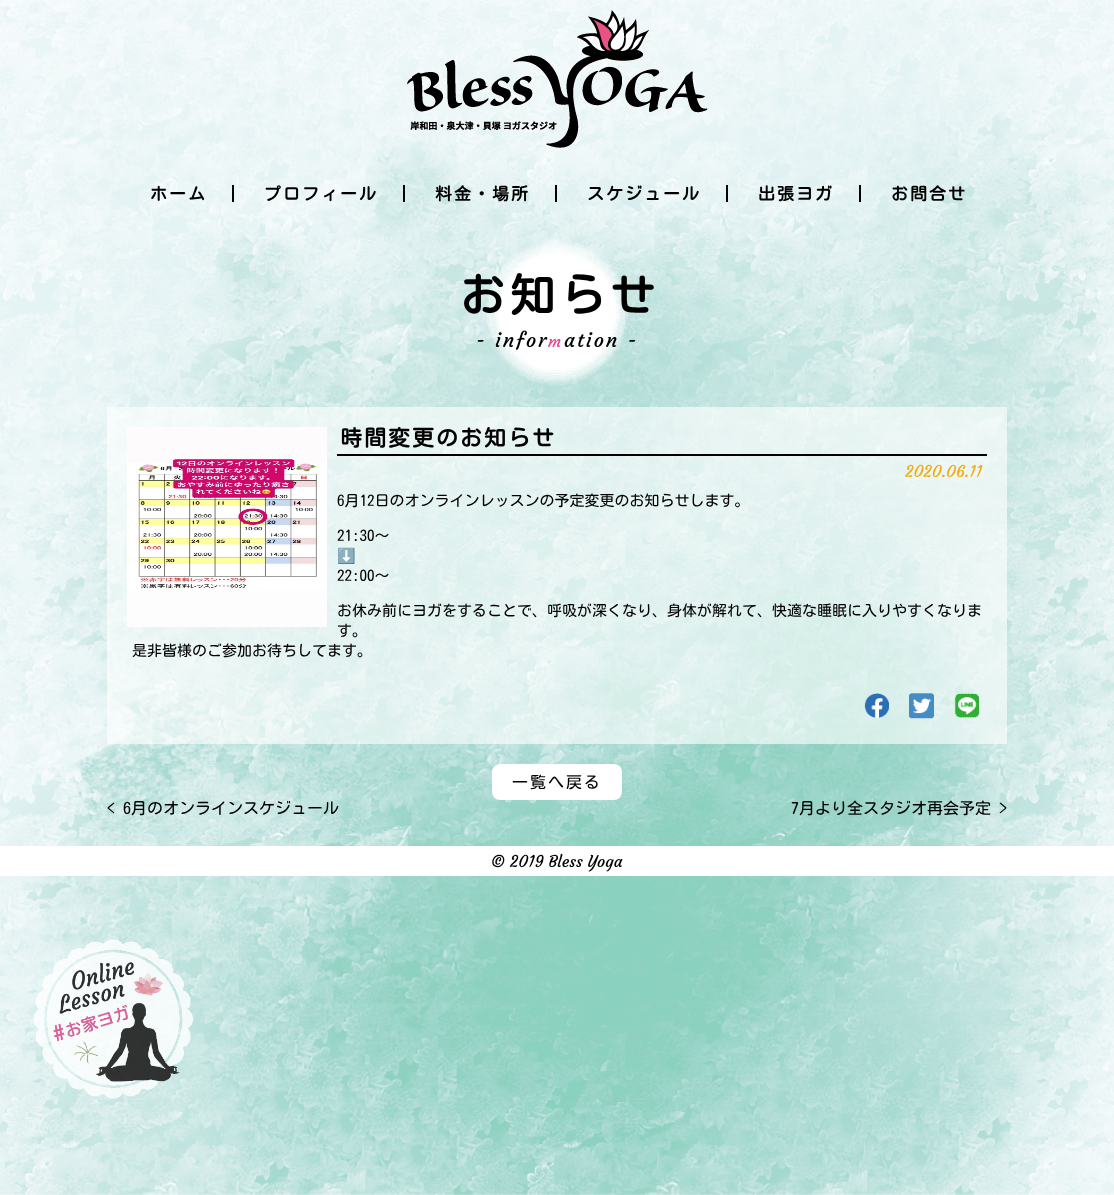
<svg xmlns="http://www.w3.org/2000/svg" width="1114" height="1195">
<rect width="100%" height="100%" fill="#fff"/>
<image x="0" y="0" width="1114" height="1195" href="media/1.png"/>
<image x="407" y="10" width="301" height="138" href="media/2.png"/>
<rect x="232" y="185" width="2" height="17" fill="#000"/>
<text x="150" y="200" style="font-family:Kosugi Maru;font-size:17px;font-weight:bold;letter-spacing:2px;fill:#000">ホーム</text>
<rect x="403" y="185" width="2" height="17" fill="#000"/>
<text x="264" y="200" style="font-family:Kosugi Maru;font-size:17px;font-weight:bold;letter-spacing:2px;fill:#000">プロフィール</text>
<rect x="555" y="185" width="2" height="17" fill="#000"/>
<text x="435" y="200" style="font-family:Kosugi Maru;font-size:17px;font-weight:bold;letter-spacing:2px;fill:#000">料金・場所</text>
<rect x="726" y="185" width="2" height="17" fill="#000"/>
<text x="587" y="200" style="font-family:Kosugi Maru;font-size:17px;font-weight:bold;letter-spacing:2px;fill:#000">スケジュール</text>
<rect x="859" y="185" width="2" height="17" fill="#000"/>
<text x="758" y="200" style="font-family:Kosugi Maru;font-size:17px;font-weight:bold;letter-spacing:2px;fill:#000">出張ヨガ</text>
<text x="891" y="200" style="font-family:Kosugi Maru;font-size:17px;font-weight:bold;letter-spacing:2px;fill:#000">お問合せ</text>
<image x="33" y="939" width="160" height="160" href="media/3.png"/>
<image x="486" y="239" width="142" height="147" href="media/4.png"/>
<text x="460" y="312" style="font-family:Kosugi Maru;font-size:45px;font-weight:bold;letter-spacing:5px;fill:#000">お知らせ</text>
<text x="476" y="347" style="font-family:Courgette;font-size:20px;letter-spacing:2px;fill:#000">- infor</text>
<text x="548" y="347" style="font-family:Courgette;font-size:16px;letter-spacing:2px;fill:#e84091">m</text>
<text x="564" y="347" style="font-family:Courgette;font-size:20px;letter-spacing:2px;fill:#000">ation -</text>
<rect x="107" y="407" width="900" height="337" fill="#ffffff9e"/>
<image x="127" y="427" width="200" height="200" href="media/5.png"/>
<rect x="337" y="454" width="650" height="2" fill="#000"/>
<text x="340" y="446" style="font-family:Kosugi Maru;font-size:22px;font-weight:bold;letter-spacing:2px;fill:#000">時間変更のお知らせ</text>
<text x="905" y="477" style="font-family:Courgette;font-size:16px;fill:#f1aa0c">2020.06.11</text>
<text x="337" y="506" style="font-family:Kosugi Maru;font-size:15px;fill:#000">6月12日のオンラインレッスンの予定変更のお知らせします。</text>
<text x="337" y="541" style="font-family:Kosugi Maru;font-size:15px;fill:#000">21:30〜</text>
<text x="337" y="561" style="font-family:Noto Color Emoji;font-size:15px;fill:#000">⬇️</text>
<text x="337" y="581" style="font-family:Kosugi Maru;font-size:15px;fill:#000">22:00〜</text>
<text x="337" y="616" style="font-family:Kosugi Maru;font-size:15px;fill:#000">お休み前にヨガをすることで、呼吸が深くなり、身体が解れて、快適な睡眠に入りやすくなりま</text>
<text x="337" y="636" style="font-family:Kosugi Maru;font-size:15px;fill:#000">す。</text>
<text x="132" y="656" style="font-family:Kosugi Maru;font-size:15px;fill:#000">是非皆様のご参加お待ちしてます。</text>
<image x="864" y="693" width="25" height="25" href="media/6.png"/>
<image x="909" y="693" width="25" height="26" href="media/7.png"/>
<image x="954" y="693" width="25" height="25" href="media/8.png"/>
<rect x="492" y="764" width="130" height="36" rx="8" fill="#fff"/>
<text x="512" y="788" style="font-family:Kosugi Maru;font-size:16px;letter-spacing:2px;fill:#000">一覧へ戻る</text>
<text x="107" y="814" style="font-family:Kosugi Maru;font-size:16px;fill:#000">&lt; 6月のオンラインスケジュール</text>
<text x="791" y="814" style="font-family:Kosugi Maru;font-size:16px;fill:#000">7月より全スタジオ再会予定 &gt;</text>
<rect y="846" width="1114" height="30" fill="#fff"/>
<text x="491" y="867" style="font-family:Courgette;font-size:16px;fill:#000">© 2019 Bless Yoga</text>
</svg>
